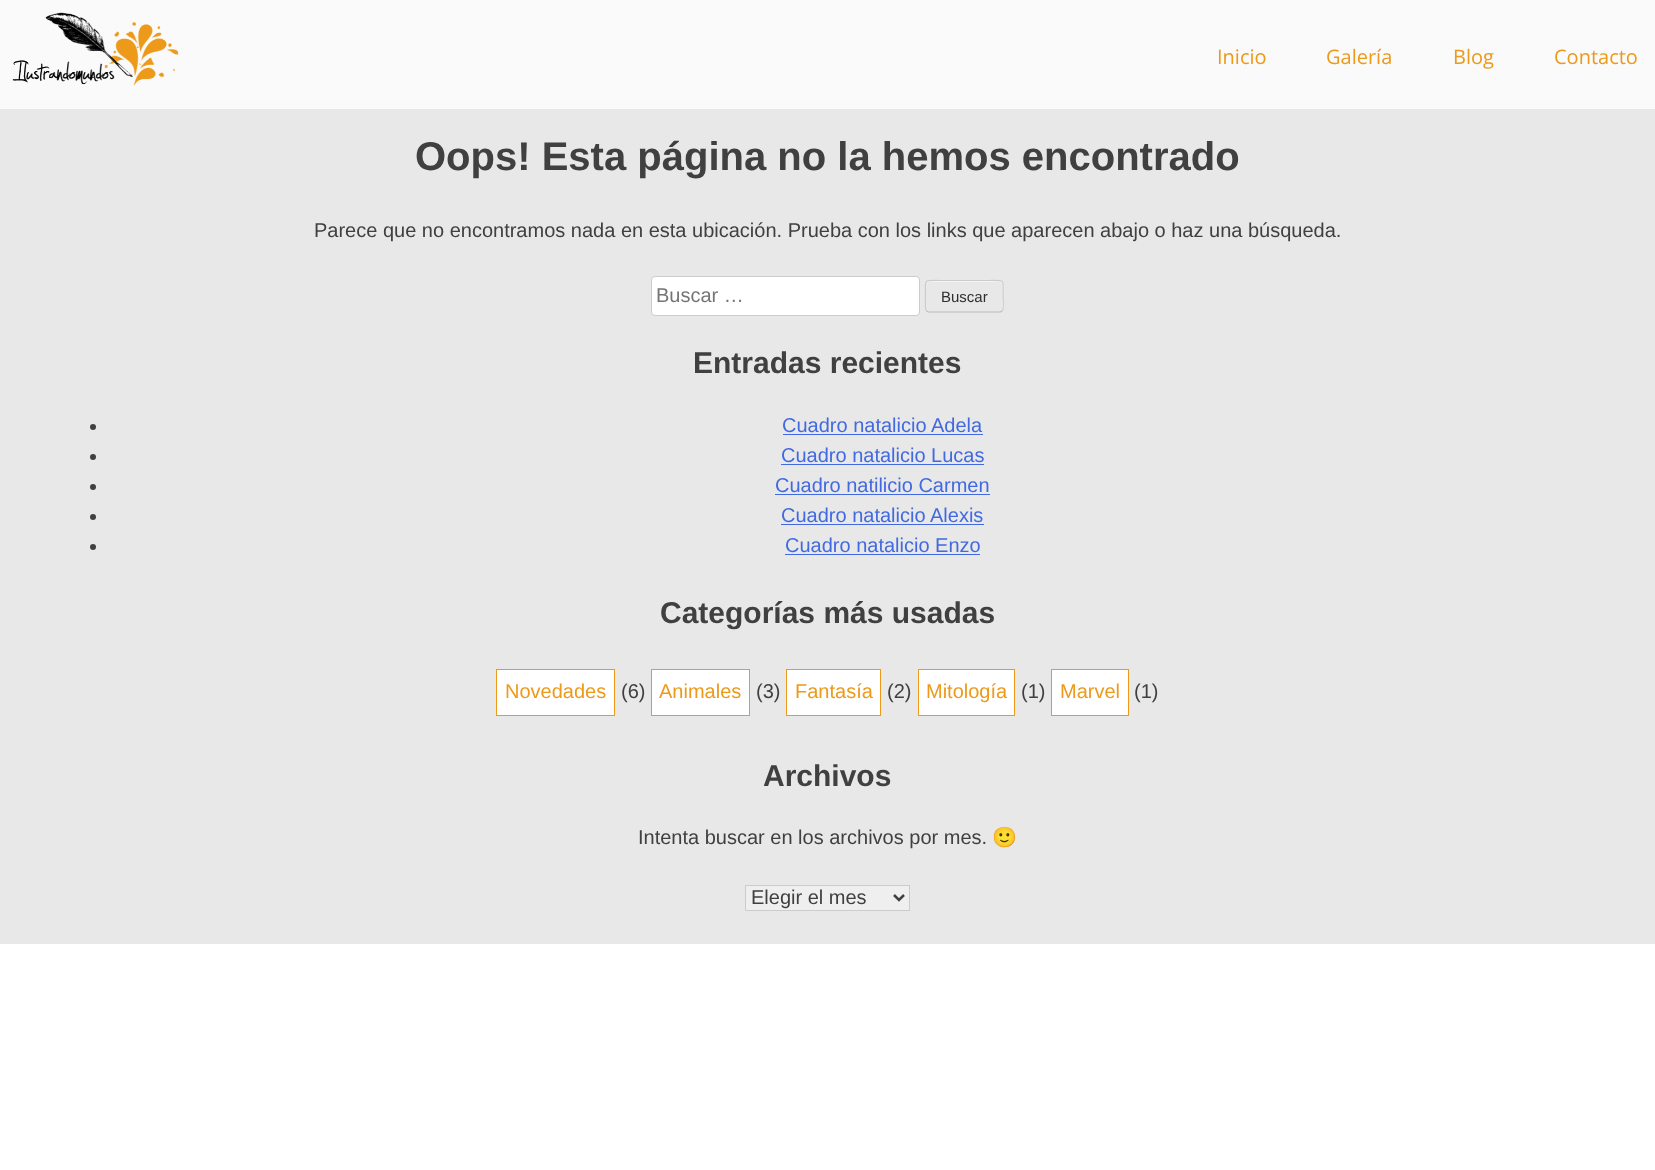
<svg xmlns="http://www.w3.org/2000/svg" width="1655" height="1170">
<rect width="100%" height="100%" fill="#fff"/>
<rect width="1655" height="109" fill="#fafafa"/>
<image x="12" y="12" width="167" height="74" href="media/1.png"/>
<text x="1217" y="64" style="font-family:Open Sans;font-size:20px;fill:#ed9919">Inicio</text>
<text x="1326" y="64" style="font-family:Open Sans;font-size:20px;fill:#ed9919">Galería</text>
<text x="1453" y="64" style="font-family:Open Sans;font-size:20px;fill:#ed9919">Blog</text>
<text x="1554" y="64" style="font-family:Open Sans;font-size:20px;fill:#ed9919">Contacto</text>
<rect y="109" width="1655" height="835" fill="#e8e8e8"/>
<text x="415" y="170" style="font-family:Liberation Sans;font-size:40px;font-weight:bold;fill:#404040">Oops! Esta página no la hemos encontrado</text>
<text x="314" y="237" style="font-family:Liberation Sans;font-size:20px;fill:#404040">Parece que no encontramos nada en esta ubicación. Prueba con los links que aparecen abajo o haz una búsqueda.</text>
<rect x="651.5" y="276.5" width="268" height="39" rx="3.5" fill="#fff" stroke="#ccc"/>
<text x="656" y="302" style="font-family:Liberation Sans;font-size:20px;fill:#757575">Buscar …</text>
<path d="M929 282h59c16 0 14-2 14 11v18c2-2 1-12 1-15c0-17 3-15-15-15h-48c-5 0-14-3-14 4c0-1 1-3 3-3z" fill="#f3f3f3"/>
<path d="M1002 311l-1.5 1h-72l-2-1" fill="none" stroke="#bbb" stroke-width="1.2"/>
<path d="M926.5 311c-2-2-1-12-1-15c0-17.5-3-15.5 15-15.5h47.5c18 0 15-2 15 15.5c0 3 1.5 13-1 15" fill="none" stroke="#ccc" stroke-width="1.2"/>
<text x="941" y="302" style="font-family:Liberation Sans;font-size:15px;fill:#2e2e2e">Buscar</text>
<text x="693" y="373" style="font-family:Liberation Sans;font-size:30px;font-weight:bold;fill:#404040">Entradas recientes</text>
<circle cx="93" cy="427" r="3" fill="#404040"/>
<text x="782" y="432" style="font-family:Liberation Sans;font-size:20px;fill:#4169e1">Cuadro natalicio Adela</text>
<rect x="783" y="434" width="200" height="1" fill="#4169e1"/>
<circle cx="93" cy="457" r="3" fill="#404040"/>
<text x="781" y="462" style="font-family:Liberation Sans;font-size:20px;fill:#4169e1">Cuadro natalicio Lucas</text>
<rect x="781" y="464" width="203" height="1" fill="#4169e1"/>
<circle cx="93" cy="487" r="3" fill="#404040"/>
<text x="775" y="492" style="font-family:Liberation Sans;font-size:20px;fill:#4169e1">Cuadro natilicio Carmen</text>
<rect x="775" y="494" width="215" height="1" fill="#4169e1"/>
<circle cx="93" cy="517" r="3" fill="#404040"/>
<text x="781" y="522" style="font-family:Liberation Sans;font-size:20px;fill:#4169e1">Cuadro natalicio Alexis</text>
<rect x="781" y="524" width="203" height="1" fill="#4169e1"/>
<circle cx="93" cy="547" r="3" fill="#404040"/>
<text x="785" y="552" style="font-family:Liberation Sans;font-size:20px;fill:#4169e1">Cuadro natalicio Enzo</text>
<rect x="785" y="554" width="195" height="1" fill="#4169e1"/>
<text x="660" y="623" style="font-family:Liberation Sans;font-size:30px;font-weight:bold;fill:#404040">Categorías más usadas</text>
<rect x="496.5" y="669.5" width="118" height="46" fill="#fff" stroke="#ed9919"/>
<text x="505" y="698" style="font-family:Liberation Sans;font-size:20px;fill:#ed9919">Novedades</text>
<text x="621" y="698" style="font-family:Liberation Sans;font-size:20px;fill:#404040">(6)</text>
<rect x="651.5" y="669.5" width="98" height="46" fill="#fff" stroke="#ed9919"/>
<text x="659" y="698" style="font-family:Liberation Sans;font-size:20px;fill:#ed9919">Animales</text>
<text x="756" y="698" style="font-family:Liberation Sans;font-size:20px;fill:#404040">(3)</text>
<rect x="786.5" y="669.5" width="94" height="46" fill="#fff" stroke="#ed9919"/>
<text x="795" y="698" style="font-family:Liberation Sans;font-size:20px;fill:#ed9919">Fantasía</text>
<text x="887" y="698" style="font-family:Liberation Sans;font-size:20px;fill:#404040">(2)</text>
<rect x="918.5" y="669.5" width="96" height="46" fill="#fff" stroke="#ed9919"/>
<text x="926" y="698" style="font-family:Liberation Sans;font-size:20px;fill:#ed9919">Mitología</text>
<text x="1021" y="698" style="font-family:Liberation Sans;font-size:20px;fill:#404040">(1)</text>
<rect x="1051.5" y="669.5" width="77" height="46" fill="#fff" stroke="#ed9919"/>
<text x="1060" y="698" style="font-family:Liberation Sans;font-size:20px;fill:#ed9919">Marvel</text>
<text x="1134" y="698" style="font-family:Liberation Sans;font-size:20px;fill:#404040">(1)</text>
<text x="763" y="786" style="font-family:Liberation Sans;font-size:30px;font-weight:bold;fill:#404040">Archivos</text>
<text x="638" y="844" style="font-family:Liberation Sans;font-size:20px;fill:#404040">Intenta buscar en los archivos por mes.</text>
<text x="992" y="844" style="font-family:Noto Color Emoji;font-size:20px;fill:#404040">🙂</text>
<rect x="745.5" y="885.5" width="164" height="25" fill="#efefef" stroke="#ccc"/>
<path d="M894 895l5 5l5-5" fill="none" stroke="#404040" stroke-width="2.5"/>
<text x="751" y="904" style="font-family:Liberation Sans;font-size:20px;fill:#404040">Elegir el mes</text>
</svg>
